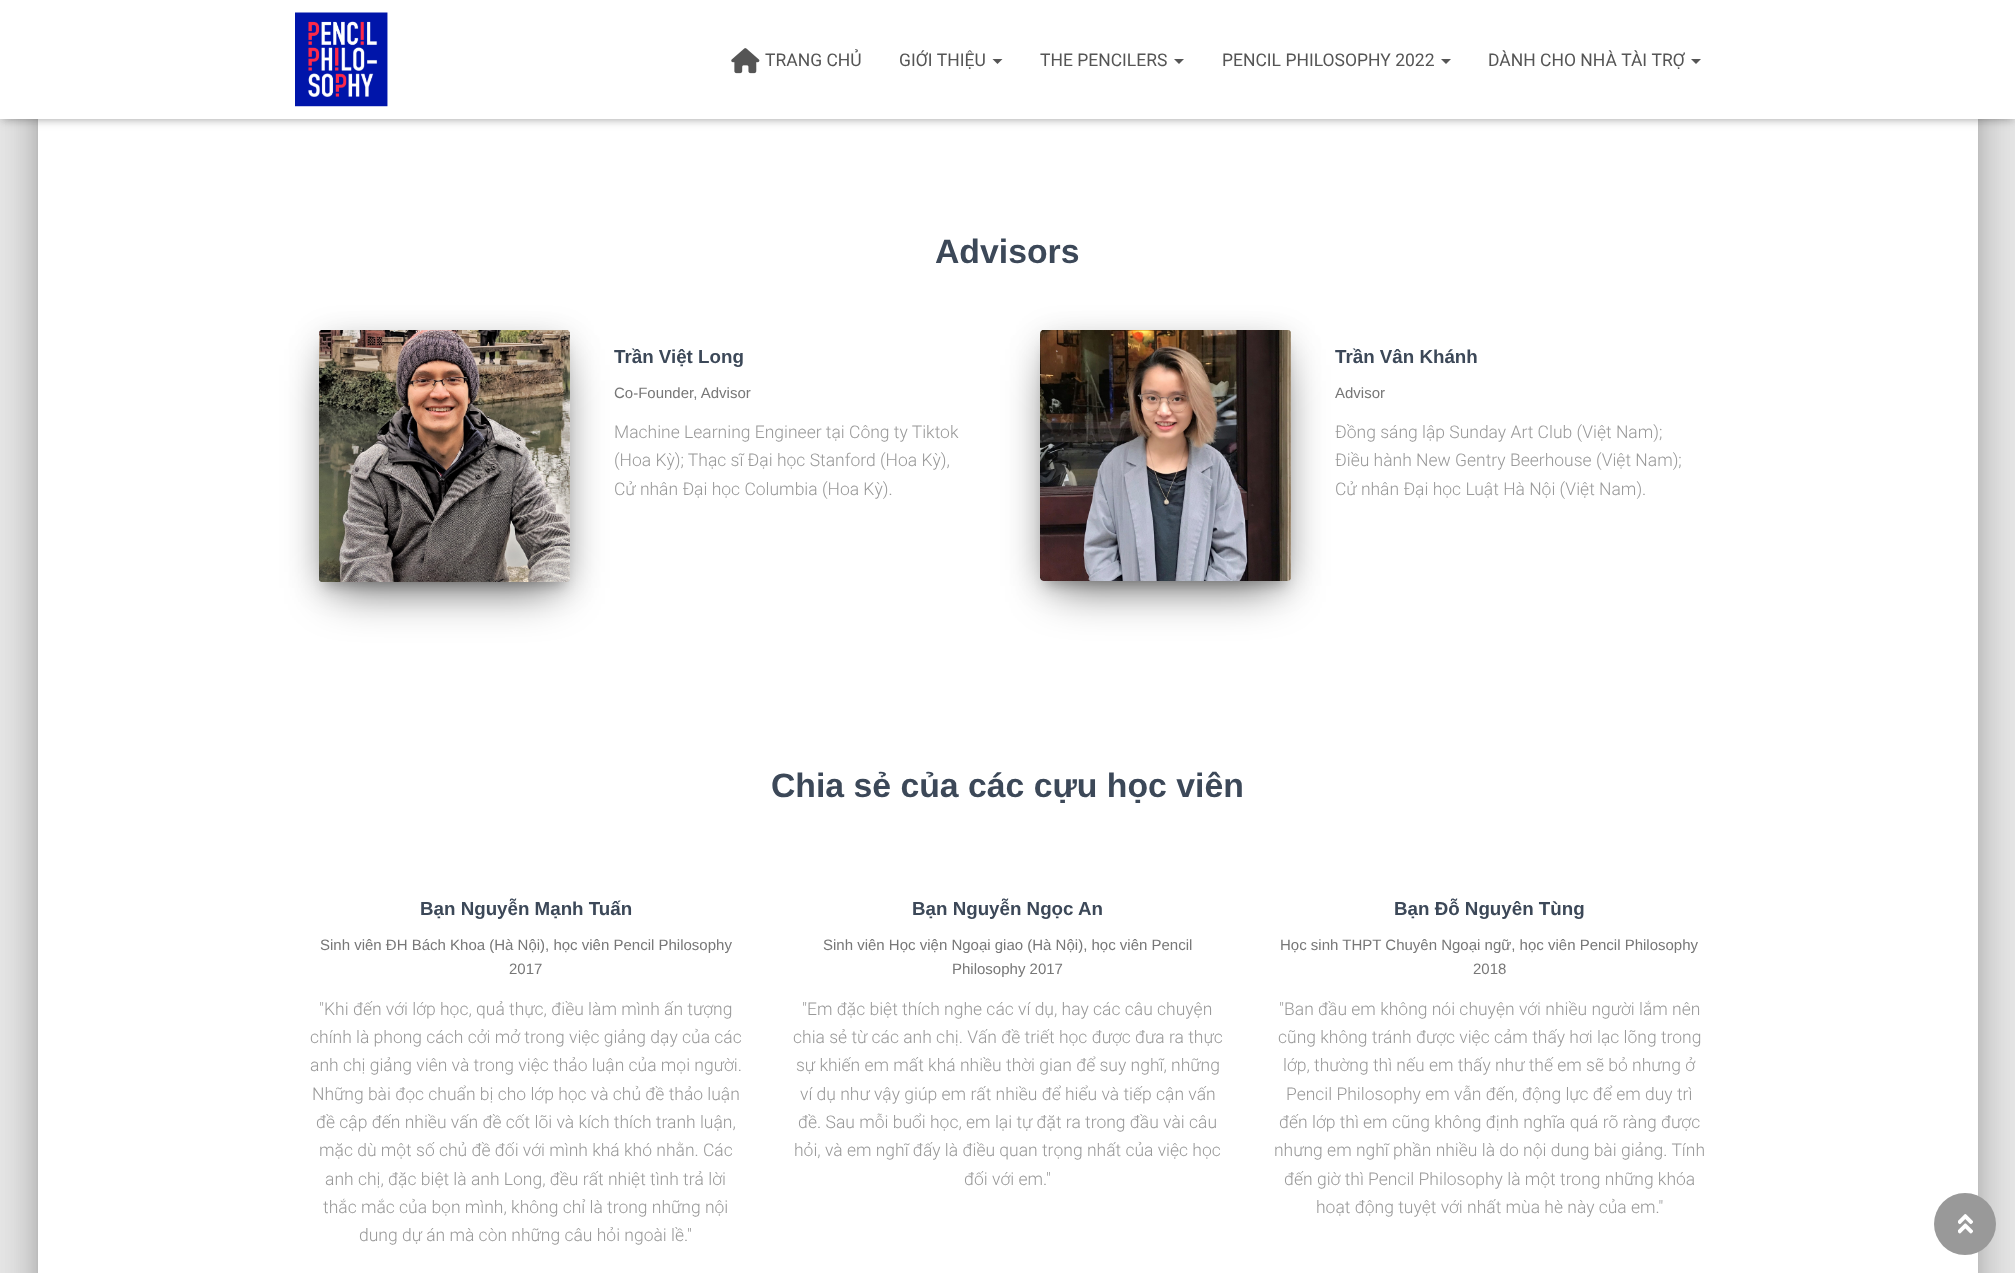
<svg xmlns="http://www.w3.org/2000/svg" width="2015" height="1273">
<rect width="100%" height="100%" fill="#e5e5e5"/>
<rect x="44" y="-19" width="1927" height="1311" rx="1" fill="#00000033" filter="blur(6px)"/>
<rect x="31" y="-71" width="1953" height="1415" rx="14" fill="#0000001f" filter="blur(19px)"/>
<rect x="35" y="-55" width="1945" height="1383" rx="10" fill="#00000024" filter="blur(15px)"/>
<rect x="38" y="119" width="1940" height="1154" fill="#fff"/>
<rect x="3" y="8" width="2010" height="113" fill="#0000001a" filter="blur(3px)"/>
<rect y="1" width="2015" height="119" fill="#0000001f" filter="blur(6px)"/>
<rect x="8" y="9" width="2000" height="104" fill="#0000006b" filter="blur(6px)"/>
<rect width="2015" height="119" fill="#fff"/>
<image x="295" y="12" width="93" height="95" href="media/1.png"/>
<image x="731" y="48" width="29" height="26" href="media/2.png"/>
<text x="765" y="66" style="font-family:Roboto;font-size:17.5px;fill:#555">TRANG CHỦ</text>
<text x="899" y="66" style="font-family:Roboto;font-size:17.5px;fill:#555">GIỚI THIỆU</text>
<path d="M992.5 59h10l-5 5z" fill="#555"/>
<text x="1040" y="66" style="font-family:Roboto;font-size:17.5px;fill:#555">THE PENCILERS</text>
<path d="M1174 59h10l-5 5z" fill="#555"/>
<text x="1222" y="66" style="font-family:Roboto;font-size:17.5px;fill:#555">PENCIL PHILOSOPHY 2022</text>
<path d="M1441 59h10l-5 5z" fill="#555"/>
<text x="1488" y="66" style="font-family:Roboto;font-size:17.5px;fill:#555">DÀNH CHO NHÀ TÀI TRỢ</text>
<path d="M1691 59h10l-5 5z" fill="#555"/>
<text x="935" y="263" style="font-family:Liberation Sans;font-size:33.75px;font-weight:bold;fill:#3c4858">Advisors</text>
<rect x="325" y="346" width="239" height="240" fill="#00000033" filter="blur(6px)"/>
<rect x="319" y="335" width="251" height="253" rx="4" fill="#0000001f" filter="blur(15.5px)"/>
<rect x="334" y="365" width="221" height="223" fill="#0000008f" filter="blur(24px)"/>
<image x="319" y="330" width="251" height="252" href="media/3.png"/>
<text x="614" y="363" style="font-family:Liberation Sans;font-size:18.75px;font-weight:bold;fill:#3c4858">Trần Việt Long</text>
<text x="614" y="398" style="font-family:Liberation Sans;font-size:15px;fill:#777">Co-Founder, Advisor</text>
<text x="614" y="438" style="font-family:Roboto;font-size:17.5px;font-weight:300;fill:#999">Machine Learning Engineer tại Công ty Tiktok</text>
<text x="614" y="466" style="font-family:Roboto;font-size:17.5px;font-weight:300;fill:#999">(Hoa Kỳ); Thạc sĩ Đại học Stanford (Hoa Kỳ),</text>
<text x="614" y="495" style="font-family:Roboto;font-size:17.5px;font-weight:300;fill:#999">Cử nhân Đại học Columbia (Hoa Kỳ).</text>
<rect x="1046" y="346" width="239" height="239" fill="#00000033" filter="blur(6px)"/>
<rect x="1040" y="335" width="251" height="251" rx="4" fill="#0000001f" filter="blur(15.5px)"/>
<rect x="1055" y="365" width="221" height="221" fill="#0000008f" filter="blur(24px)"/>
<image x="1040" y="330" width="251" height="251" href="media/4.png"/>
<text x="1335" y="363" style="font-family:Liberation Sans;font-size:18.75px;font-weight:bold;fill:#3c4858">Trần Vân Khánh</text>
<text x="1335" y="398" style="font-family:Liberation Sans;font-size:15px;fill:#777">Advisor</text>
<text x="1335" y="438" style="font-family:Roboto;font-size:17.5px;font-weight:300;fill:#999">Đồng sáng lập Sunday Art Club (Việt Nam);</text>
<text x="1335" y="466" style="font-family:Roboto;font-size:17.5px;font-weight:300;fill:#999">Điều hành New Gentry Beerhouse (Việt Nam);</text>
<text x="1335" y="495" style="font-family:Roboto;font-size:17.5px;font-weight:300;fill:#999">Cử nhân Đại học Luật Hà Nội (Việt Nam).</text>
<text x="771" y="797" style="font-family:Liberation Sans;font-size:33.75px;font-weight:bold;fill:#3c4858">Chia sẻ của các cựu học viên</text>
<text x="420" y="915" style="font-family:Liberation Sans;font-size:18.75px;font-weight:bold;fill:#3c4858">Bạn Nguyễn Mạnh Tuấn</text>
<text x="320" y="950" style="font-family:Liberation Sans;font-size:15px;fill:#777">Sinh viên ĐH Bách Khoa (Hà Nội), học viên Pencil Philosophy</text>
<text x="509" y="974" style="font-family:Liberation Sans;font-size:15px;fill:#777">2017</text>
<text x="319" y="1015" style="font-family:Roboto;font-size:17.5px;font-weight:300;fill:#999">"Khi đến với lớp học, quả thực, điều làm mình ấn tượng</text>
<text x="310" y="1043" style="font-family:Roboto;font-size:17.5px;font-weight:300;fill:#999">chính là phong cách cởi mở trong việc giảng dạy của các</text>
<text x="310" y="1071" style="font-family:Roboto;font-size:17.5px;font-weight:300;fill:#999">anh chị giảng viên và trong việc thảo luận của mọi người.</text>
<text x="312" y="1100" style="font-family:Roboto;font-size:17.5px;font-weight:300;fill:#999">Những bài đọc chuẩn bị cho lớp học và chủ đề thảo luận</text>
<text x="316" y="1128" style="font-family:Roboto;font-size:17.5px;font-weight:300;fill:#999">đề cập đến nhiều vấn đề cốt lõi và kích thích tranh luận,</text>
<text x="319" y="1156" style="font-family:Roboto;font-size:17.5px;font-weight:300;fill:#999">mặc dù một số chủ đề đối với mình khá khó nhằn. Các</text>
<text x="325" y="1185" style="font-family:Roboto;font-size:17.5px;font-weight:300;fill:#999">anh chị, đặc biệt là anh Long, đều rất nhiệt tình trả lời</text>
<text x="323" y="1213" style="font-family:Roboto;font-size:17.5px;font-weight:300;fill:#999">thắc mắc của bọn mình, không chỉ là trong những nội</text>
<text x="359" y="1241" style="font-family:Roboto;font-size:17.5px;font-weight:300;fill:#999">dung dự án mà còn những câu hỏi ngoài lề."</text>
<text x="912" y="915" style="font-family:Liberation Sans;font-size:18.75px;font-weight:bold;fill:#3c4858">Bạn Nguyễn Ngọc An</text>
<text x="823" y="950" style="font-family:Liberation Sans;font-size:15px;fill:#777">Sinh viên Học viện Ngoại giao (Hà Nội), học viên Pencil</text>
<text x="952" y="974" style="font-family:Liberation Sans;font-size:15px;fill:#777">Philosophy 2017</text>
<text x="802" y="1015" style="font-family:Roboto;font-size:17.5px;font-weight:300;fill:#999">"Em đặc biệt thích nghe các ví dụ, hay các câu chuyện</text>
<text x="793" y="1043" style="font-family:Roboto;font-size:17.5px;font-weight:300;fill:#999">chia sẻ từ các anh chị. Vấn đề triết học được đưa ra thực</text>
<text x="796" y="1071" style="font-family:Roboto;font-size:17.5px;font-weight:300;fill:#999">sự khiến em mất khá nhiều thời gian để suy nghĩ, những</text>
<text x="800" y="1100" style="font-family:Roboto;font-size:17.5px;font-weight:300;fill:#999">ví dụ như vậy giúp em rất nhiều để hiểu và tiếp cận vấn</text>
<text x="798" y="1128" style="font-family:Roboto;font-size:17.5px;font-weight:300;fill:#999">đề. Sau mỗi buổi học, em lại tự đặt ra trong đầu vài câu</text>
<text x="794" y="1156" style="font-family:Roboto;font-size:17.5px;font-weight:300;fill:#999">hỏi, và em nghĩ đấy là điều quan trọng nhất của việc học</text>
<text x="964" y="1185" style="font-family:Roboto;font-size:17.5px;font-weight:300;fill:#999">đối với em."</text>
<text x="1394" y="915" style="font-family:Liberation Sans;font-size:18.75px;font-weight:bold;fill:#3c4858">Bạn Đỗ Nguyên Tùng</text>
<text x="1280" y="950" style="font-family:Liberation Sans;font-size:15px;fill:#777">Học sinh THPT Chuyên Ngoại ngữ, học viên Pencil Philosophy</text>
<text x="1473" y="974" style="font-family:Liberation Sans;font-size:15px;fill:#777">2018</text>
<text x="1279" y="1015" style="font-family:Roboto;font-size:17.5px;font-weight:300;fill:#999">"Ban đầu em không nói chuyện với nhiều người lắm nên</text>
<text x="1278" y="1043" style="font-family:Roboto;font-size:17.5px;font-weight:300;fill:#999">cũng không tránh được việc cảm thấy hơi lạc lõng trong</text>
<text x="1283" y="1071" style="font-family:Roboto;font-size:17.5px;font-weight:300;fill:#999">lớp, thường thì nếu em thấy như thế em sẽ bỏ nhưng ở</text>
<text x="1286" y="1100" style="font-family:Roboto;font-size:17.5px;font-weight:300;fill:#999">Pencil Philosophy em vẫn đến, động lực để em duy trì</text>
<text x="1279" y="1128" style="font-family:Roboto;font-size:17.5px;font-weight:300;fill:#999">đến lớp thì em cũng không định nghĩa quá rõ ràng được</text>
<text x="1274" y="1156" style="font-family:Roboto;font-size:17.5px;font-weight:300;fill:#999">nhưng em nghĩ phần nhiều là do nội dung bài giảng. Tính</text>
<text x="1284" y="1185" style="font-family:Roboto;font-size:17.5px;font-weight:300;fill:#999">đến giờ thì Pencil Philosophy là một trong những khóa</text>
<text x="1316" y="1213" style="font-family:Roboto;font-size:17.5px;font-weight:300;fill:#999">hoạt động tuyệt với nhất mùa hè này của em."</text>
<circle cx="1965" cy="1224" r="31" fill="#999"/>
<image x="1958" y="1214" width="15" height="20" href="media/5.png"/>
</svg>
